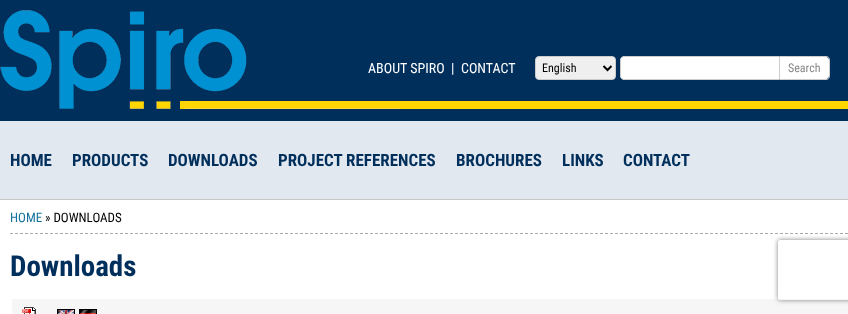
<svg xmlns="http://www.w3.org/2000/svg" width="848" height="314">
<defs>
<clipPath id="clip1"><path d="M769 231h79v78h-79zm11 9h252c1 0 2 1 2 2v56c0 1-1 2-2 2h-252c-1 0-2-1-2-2v-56c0-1 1-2 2-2z" clip-rule="evenodd"/></clipPath>
</defs>
<rect width="100%" height="100%" fill="#fff"/>
<image x="0" y="0" width="848" height="200" href="media/1.png"/>
<rect x="180" y="101" width="668" height="8" fill="#ffd600"/>
<image x="0" y="10" width="400" height="99" href="media/2.png"/>
<text x="368" y="73" style="font-family:Roboto Condensed;font-size:14px;fill:#fff">ABOUT SPIRO</text>
<text x="451" y="73" style="font-family:Roboto Condensed;font-size:14px;fill:#fff">|</text>
<text x="461" y="73" style="font-family:Roboto Condensed;font-size:14px;fill:#fff">CONTACT</text>
<rect x="535.5" y="56.5" width="80" height="23" rx="3.5" fill="#efefef" stroke="#ccc"/>
<path d="M603.5 66l4 4l4-4" fill="none" stroke="#000" stroke-width="2"/>
<text x="542" y="72" style="font-family:Roboto Condensed;font-size:12px;fill:#000">English</text>
<path d="M624 56.5h155.5v23h-155.5c-2 0-3.5-1.5-3.5-3.5v-16c0-2 1.5-3.5 3.5-3.5z" fill="#fff" stroke="#ccc"/>
<path d="M780 57h46c1.5 0 3 1.5 3 3v16c0 1.5-1.5 3-3 3h-46z" fill="#fff"/>
<path d="M780 56h46c2 0 4 2 4 4v16c0 2-2 4-4 4h-46zm0 1h46c2 0 3 1 3 3v16c0 2-1 3-3 3h-46z" fill="#ccc" fill-rule="evenodd"/>
<text x="788" y="72" style="font-family:Roboto Condensed;font-size:12px;fill:#888">Search</text>
<text x="10" y="166" style="font-family:Roboto Condensed;font-size:17px;font-weight:bold;fill:#002f5c">HOME</text>
<text x="72" y="166" style="font-family:Roboto Condensed;font-size:17px;font-weight:bold;fill:#002f5c">PRODUCTS</text>
<text x="168" y="166" style="font-family:Roboto Condensed;font-size:17px;font-weight:bold;fill:#002f5c">DOWNLOADS</text>
<text x="278" y="166" style="font-family:Roboto Condensed;font-size:17px;font-weight:bold;fill:#002f5c">PROJECT REFERENCES</text>
<text x="456" y="166" style="font-family:Roboto Condensed;font-size:17px;font-weight:bold;fill:#002f5c">BROCHURES</text>
<text x="562" y="166" style="font-family:Roboto Condensed;font-size:17px;font-weight:bold;fill:#002f5c">LINKS</text>
<text x="623" y="166" style="font-family:Roboto Condensed;font-size:17px;font-weight:bold;fill:#002f5c">CONTACT</text>
<path d="M10 233.5h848" fill="none" stroke="#aaa" stroke-dasharray="3 2"/>
<text x="10" y="222" style="font-family:Roboto Condensed;font-size:13px;fill:#14729c">HOME</text>
<text x="45" y="222" style="font-family:Roboto Condensed;font-size:13px;fill:#000">» DOWNLOADS</text>
<text x="10" y="276" style="font-family:Roboto Condensed;font-size:29px;font-weight:bold;fill:#002f5c">Downloads</text>
<rect x="12" y="299" width="836" height="15" fill="#f6f6f6"/>
<image x="22" y="307" width="14" height="7" href="media/3.png"/>
<image x="57" y="309" width="18" height="5" href="media/4.png"/>
<image x="79" y="309" width="18" height="5" href="media/5.png"/>
<g clip-path="url(#clip1)">
<rect x="778" y="240" width="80" height="60" rx="2" fill="#808080" filter="blur(2.5px)"/>
</g>
</svg>
